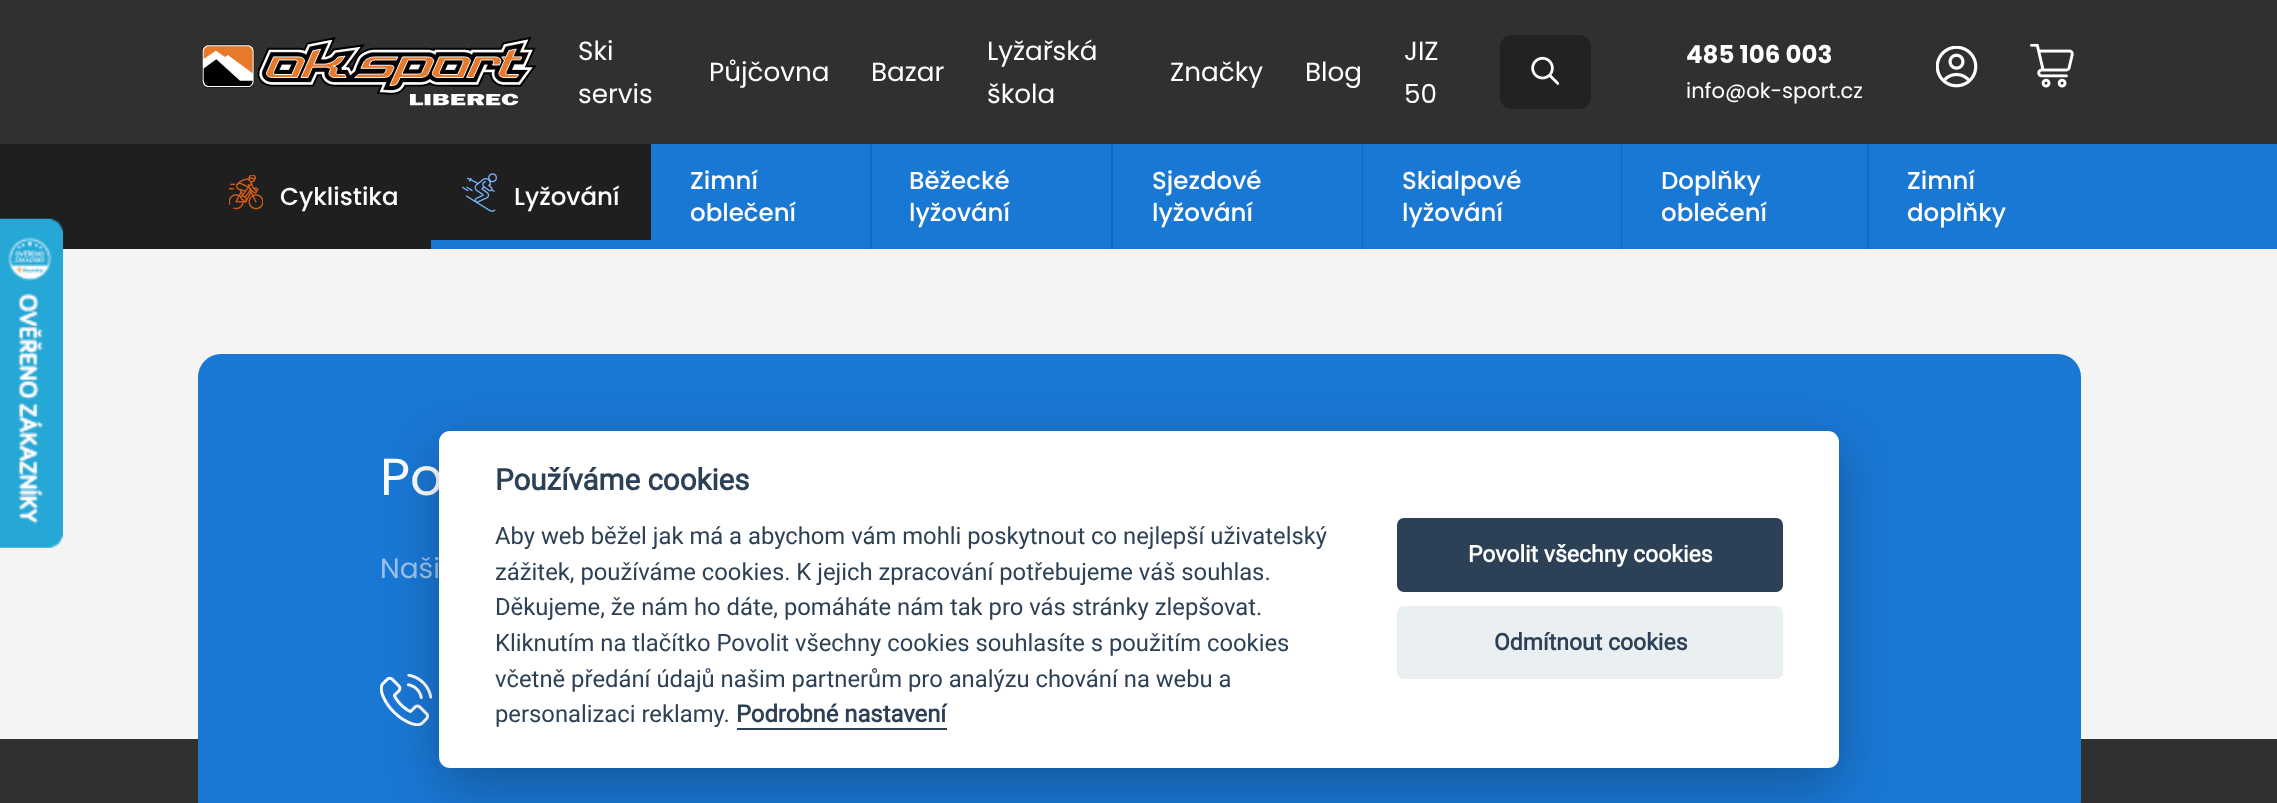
<svg xmlns="http://www.w3.org/2000/svg" width="2277" height="803">
<rect width="100%" height="100%" fill="#303030"/>
<rect y="144" width="651" height="105" fill="#1f1f1f"/>
<rect y="249" width="2277" height="490" fill="#f4f4f4"/>
<image x="0" y="218" width="63" height="330" href="media/1.png"/>
<image x="202" y="36" width="335" height="70" href="media/2.png"/>
<text x="578" y="60" style="font-family:Poppins;font-size:26.25px;fill:#fff">Ski</text>
<text x="578" y="103" style="font-family:Poppins;font-size:26.25px;fill:#fff">servis</text>
<text x="709" y="81" style="font-family:Poppins;font-size:26.25px;fill:#fff">Půjčovna</text>
<text x="871" y="81" style="font-family:Poppins;font-size:26.25px;fill:#fff">Bazar</text>
<text x="987" y="60" style="font-family:Poppins;font-size:26.25px;fill:#fff">Lyžařská</text>
<text x="987" y="103" style="font-family:Poppins;font-size:26.25px;fill:#fff">škola</text>
<text x="1170" y="81" style="font-family:Poppins;font-size:26.25px;fill:#fff">Značky</text>
<text x="1305" y="81" style="font-family:Poppins;font-size:26.25px;fill:#fff">Blog</text>
<text x="1404" y="60" style="font-family:Poppins;font-size:26.25px;fill:#fff">JIZ</text>
<text x="1404" y="103" style="font-family:Poppins;font-size:26.25px;fill:#fff">50</text>
<rect x="1500" y="35" width="91" height="74" rx="12" fill="#222"/>
<image x="1531" y="56" width="28" height="29" href="media/3.png"/>
<text x="1686" y="63" style="font-family:Poppins;font-size:24.5px;font-weight:bold;fill:#fff">485 106 003</text>
<text x="1686" y="98" style="font-family:Poppins;font-size:21px;fill:#fff">info@ok-sport.cz</text>
<image x="1936" y="46" width="42" height="42" href="media/4.png"/>
<image x="2030" y="44" width="44" height="44" href="media/5.png"/>
<rect x="651" y="144" width="1626" height="105" fill="#1a78d5"/>
<image x="229" y="175" width="34" height="35" href="media/6.png"/>
<text x="280" y="205" style="font-family:Poppins;font-size:24.5px;font-weight:500;fill:#fff">Cyklistika</text>
<image x="462" y="173" width="35" height="39" href="media/7.png"/>
<text x="514" y="205" style="font-family:Poppins;font-size:24.5px;font-weight:500;fill:#fff">Lyžování</text>
<rect x="431" y="240" width="220" height="9" fill="#1a78d5"/>
<rect x="870" y="144" width="2" height="105" fill="#1569bc"/>
<text x="690" y="189" style="font-family:Poppins;font-size:24.5px;font-weight:500;fill:#fff">Zimní</text>
<text x="690" y="221" style="font-family:Poppins;font-size:24.5px;font-weight:500;fill:#fff">oblečení</text>
<rect x="1111" y="144" width="2" height="105" fill="#1569bc"/>
<text x="909" y="189" style="font-family:Poppins;font-size:24.5px;font-weight:500;fill:#fff">Běžecké</text>
<text x="909" y="221" style="font-family:Poppins;font-size:24.5px;font-weight:500;fill:#fff">lyžování</text>
<rect x="1362" y="144" width="1" height="105" fill="#1569bc"/>
<text x="1152" y="189" style="font-family:Poppins;font-size:24.5px;font-weight:500;fill:#fff">Sjezdové</text>
<text x="1152" y="221" style="font-family:Poppins;font-size:24.5px;font-weight:500;fill:#fff">lyžování</text>
<rect x="1621" y="144" width="1" height="105" fill="#1569bc"/>
<text x="1402" y="189" style="font-family:Poppins;font-size:24.5px;font-weight:500;fill:#fff">Skialpové</text>
<text x="1402" y="221" style="font-family:Poppins;font-size:24.5px;font-weight:500;fill:#fff">lyžování</text>
<rect x="1867" y="144" width="2" height="105" fill="#1569bc"/>
<text x="1661" y="189" style="font-family:Poppins;font-size:24.5px;font-weight:500;fill:#fff">Doplňky</text>
<text x="1661" y="221" style="font-family:Poppins;font-size:24.5px;font-weight:500;fill:#fff">oblečení</text>
<text x="1907" y="189" style="font-family:Poppins;font-size:24.5px;font-weight:500;fill:#fff">Zimní</text>
<text x="1907" y="221" style="font-family:Poppins;font-size:24.5px;font-weight:500;fill:#fff">doplňky</text>
<rect x="198" y="354" width="1883" height="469" rx="23" fill="#1a78d5"/>
<text x="380" y="495" style="font-family:Poppins;font-size:52px;fill:#fff">Po</text>
<text x="380" y="578" style="font-family:Poppins;font-size:28px;fill:#9bc4ed">Naši</text>
<image x="380" y="674" width="52" height="52" href="media/8.png"/>
<rect x="439" y="448" width="1400" height="338" rx="11" fill="#02020347" filter="blur(26px)"/>
<rect x="439" y="431" width="1400" height="337" rx="11" fill="#fff"/>
<text x="495" y="490" style="font-family:Roboto;font-size:29.5px;font-weight:bold;fill:#2d4156">Používáme cookies</text>
<text x="495" y="544" style="font-family:Roboto;font-size:23.8px;fill:#2d4156">Aby web běžel jak má a abychom vám mohli poskytnout co nejlepší uživatelský</text>
<text x="495" y="580" style="font-family:Roboto;font-size:23.8px;fill:#2d4156">zážitek, používáme cookies. K jejich zpracování potřebujeme váš souhlas.</text>
<text x="495" y="615" style="font-family:Roboto;font-size:23.8px;fill:#2d4156">Děkujeme, že nám ho dáte, pomáháte nám tak pro vás stránky zlepšovat.</text>
<text x="495" y="651" style="font-family:Roboto;font-size:23.8px;fill:#2d4156">Kliknutím na tlačítko Povolit všechny cookies souhlasíte s použitím cookies</text>
<text x="495" y="687" style="font-family:Roboto;font-size:23.8px;fill:#2d4156">včetně předání údajů našim partnerům pro analýzu chování na webu a</text>
<text x="495" y="722" style="font-family:Roboto;font-size:23.8px;fill:#2d4156">personalizaci reklamy.</text>
<text x="736" y="722" style="font-family:Roboto;font-size:23.8px;font-weight:bold;fill:#2d4156">Podrobné nastavení</text>
<rect x="737" y="728" width="210" height="2" fill="#2d4156"/>
<rect x="1397" y="518" width="386" height="74" rx="7" fill="#2d4156"/>
<text x="1468" y="562" style="font-family:Roboto;font-size:23px;font-weight:bold;fill:#fff">Povolit všechny cookies</text>
<rect x="1397" y="606" width="386" height="73" rx="7" fill="#eaeff2"/>
<text x="1494" y="650" style="font-family:Roboto;font-size:23px;font-weight:bold;fill:#2d4156">Odmítnout cookies</text>
</svg>
